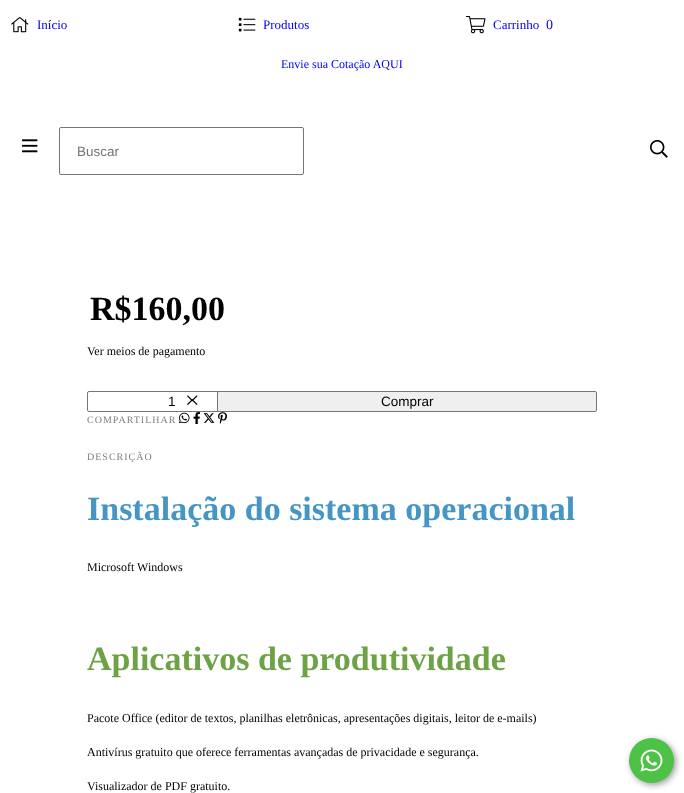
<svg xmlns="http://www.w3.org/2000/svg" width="684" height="793">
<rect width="100%" height="100%" fill="#fff"/>
<image x="11" y="17" width="18" height="16" href="media/1.png"/>
<text x="37" y="29" style="font-family:Liberation Serif;font-size:13px;fill:#00e">Início</text>
<image x="238" y="17" width="18" height="15" href="media/2.png"/>
<text x="263" y="29" style="font-family:Liberation Serif;font-size:13px;fill:#00e">Produtos</text>
<image x="466" y="16" width="20" height="18" href="media/3.png"/>
<text x="493" y="29" style="font-family:Liberation Serif;font-size:13px;fill:#00e">Carrinho</text>
<text x="546" y="29" style="font-family:Liberation Serif;font-size:14px;fill:#00e">0</text>
<text x="281" y="68" style="font-family:Liberation Serif;font-size:12px;fill:#00e">Envie sua Cotação AQUI</text>
<image x="22" y="139" width="16" height="14" href="media/4.png"/>
<rect x="59.5" y="127.5" width="244" height="47" rx="1.5" fill="none" stroke="#767676"/>
<text x="77" y="156" style="font-family:Liberation Sans;font-size:13.5px;fill:#757575">Buscar</text>
<image x="650" y="140" width="18" height="18" href="media/5.png"/>
<text x="90" y="320" style="font-family:Liberation Serif;font-size:34px;font-weight:bold;fill:#000">R$160,00</text>
<text x="87" y="355" style="font-family:Liberation Serif;font-size:12px;fill:#000">Ver meios de pagamento</text>
<rect x="87.5" y="391.5" width="184" height="20" rx="1.5" fill="none" stroke="#767676"/>
<text x="168" y="406" style="font-family:Liberation Sans;font-size:13.5px;fill:#000">1</text>
<image x="187" y="395" width="11" height="7" href="media/6.png"/>
<image x="187" y="399" width="11" height="6" href="media/7.png"/>
<rect x="217.5" y="391.5" width="379" height="20" rx="1.5" fill="#efefef" stroke="#767676"/>
<text x="381" y="406" style="font-family:Liberation Sans;font-size:13.5px;fill:#000">Comprar</text>
<text x="87" y="423" style="font-family:Liberation Serif;font-size:10px;letter-spacing:1px;fill:#808080">COMPARTILHAR</text>
<image x="179" y="412" width="11" height="12" href="media/8.png"/>
<image x="193" y="412" width="7" height="12" href="media/9.png"/>
<image x="203" y="413" width="12" height="10" href="media/10.png"/>
<image x="218" y="412" width="9" height="12" href="media/11.png"/>
<text x="87" y="460" style="font-family:Liberation Serif;font-size:10px;letter-spacing:1px;fill:#808080">DESCRIÇÃO</text>
<text x="87" y="520" style="font-family:Liberation Serif;font-size:34px;font-weight:bold;fill:#4596c5">Instalação do sistema operacional</text>
<text x="87" y="571" style="font-family:Liberation Serif;font-size:12px;fill:#000">Microsoft Windows</text>
<text x="87" y="670" style="font-family:Liberation Serif;font-size:34px;font-weight:bold;fill:#6da345">Aplicativos de produtividade</text>
<text x="87" y="722" style="font-family:Liberation Serif;font-size:12px;fill:#000">Pacote Office (editor de textos, planilhas eletrônicas, apresentações digitais, leitor de e-mails)</text>
<text x="87" y="756" style="font-family:Liberation Serif;font-size:12px;fill:#000">Antivírus gratuito que oferece ferramentas avançadas de privacidade e segurança.</text>
<text x="87" y="790" style="font-family:Liberation Serif;font-size:12px;fill:#000">Visualizador de PDF gratuito.</text>
<rect x="631" y="740" width="45" height="45" rx="22.5" fill="#00000066" filter="blur(3px)"/>
<circle cx="651.5" cy="760.5" r="22.5" fill="#4dc247"/>
<image x="640" y="749" width="23" height="23" href="media/12.png"/>
</svg>
